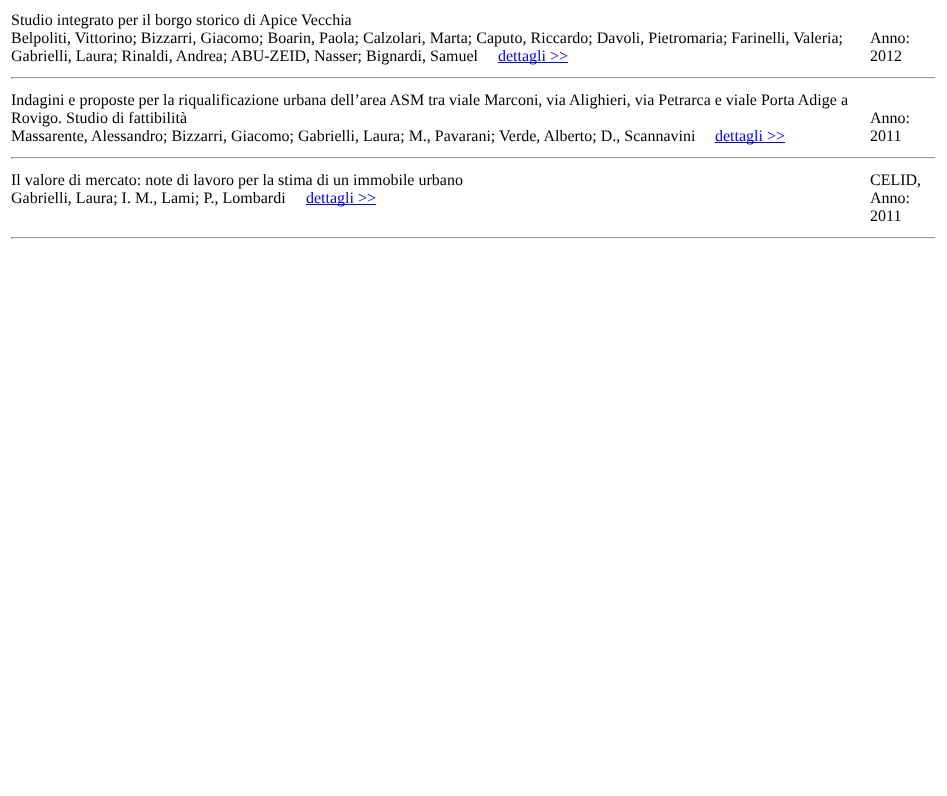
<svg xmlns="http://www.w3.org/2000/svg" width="947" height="796">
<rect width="100%" height="100%" fill="#fff"/>
<text x="11" y="25" style="font-family:Liberation Serif;font-size:16px;fill:#000">Studio integrato per il borgo storico di Apice Vecchia</text>
<text x="11" y="43" style="font-family:Liberation Serif;font-size:16px;fill:#000">Belpoliti, Vittorino; Bizzarri, Giacomo; Boarin, Paola; Calzolari, Marta; Caputo, Riccardo; Davoli, Pietromaria; Farinelli, Valeria;</text>
<text x="11" y="61" style="font-family:Liberation Serif;font-size:16px;fill:#000">Gabrielli, Laura; Rinaldi, Andrea; ABU-ZEID, Nasser; Bignardi, Samuel</text>
<rect x="498" y="62" width="70" height="1" fill="#00e"/>
<text x="498" y="61" style="font-family:Liberation Serif;font-size:16px;fill:#00e">dettagli &gt;&gt;</text>
<text x="870" y="43" style="font-family:Liberation Serif;font-size:16px;fill:#000">Anno:</text>
<text x="870" y="61" style="font-family:Liberation Serif;font-size:16px;fill:#000">2012</text>
<rect x="11" y="77" width="925" height="1" fill="#9f9f9f"/>
<rect x="935" y="77" width="1" height="2" fill="#eee"/>
<rect x="11" y="78" width="925" height="1" fill="#eee"/>
<rect x="11" y="77" width="1" height="2" fill="#9f9f9f"/>
<text x="11" y="105" style="font-family:Liberation Serif;font-size:16px;fill:#000">Indagini e proposte per la riqualificazione urbana dell’area ASM tra viale Marconi, via Alighieri, via Petrarca e viale Porta Adige a</text>
<text x="11" y="123" style="font-family:Liberation Serif;font-size:16px;fill:#000">Rovigo. Studio di fattibilità</text>
<text x="11" y="141" style="font-family:Liberation Serif;font-size:16px;fill:#000">Massarente, Alessandro; Bizzarri, Giacomo; Gabrielli, Laura; M., Pavarani; Verde, Alberto; D., Scannavini</text>
<rect x="715" y="142" width="70" height="1" fill="#00e"/>
<text x="715" y="141" style="font-family:Liberation Serif;font-size:16px;fill:#00e">dettagli &gt;&gt;</text>
<text x="870" y="123" style="font-family:Liberation Serif;font-size:16px;fill:#000">Anno:</text>
<text x="870" y="141" style="font-family:Liberation Serif;font-size:16px;fill:#000">2011</text>
<rect x="11" y="157" width="925" height="1" fill="#9f9f9f"/>
<rect x="935" y="157" width="1" height="2" fill="#eee"/>
<rect x="11" y="158" width="925" height="1" fill="#eee"/>
<rect x="11" y="157" width="1" height="2" fill="#9f9f9f"/>
<text x="11" y="185" style="font-family:Liberation Serif;font-size:16px;fill:#000">Il valore di mercato: note di lavoro per la stima di un immobile urbano</text>
<text x="11" y="203" style="font-family:Liberation Serif;font-size:16px;fill:#000">Gabrielli, Laura; I. M., Lami; P., Lombardi</text>
<rect x="306" y="204" width="70" height="1" fill="#00e"/>
<text x="306" y="203" style="font-family:Liberation Serif;font-size:16px;fill:#00e">dettagli &gt;&gt;</text>
<text x="870" y="185" style="font-family:Liberation Serif;font-size:16px;fill:#000">CELID,</text>
<text x="870" y="203" style="font-family:Liberation Serif;font-size:16px;fill:#000">Anno:</text>
<text x="870" y="221" style="font-family:Liberation Serif;font-size:16px;fill:#000">2011</text>
<rect x="11" y="237" width="925" height="1" fill="#9f9f9f"/>
<rect x="935" y="237" width="1" height="2" fill="#eee"/>
<rect x="11" y="238" width="925" height="1" fill="#eee"/>
<rect x="11" y="237" width="1" height="2" fill="#9f9f9f"/>
</svg>
